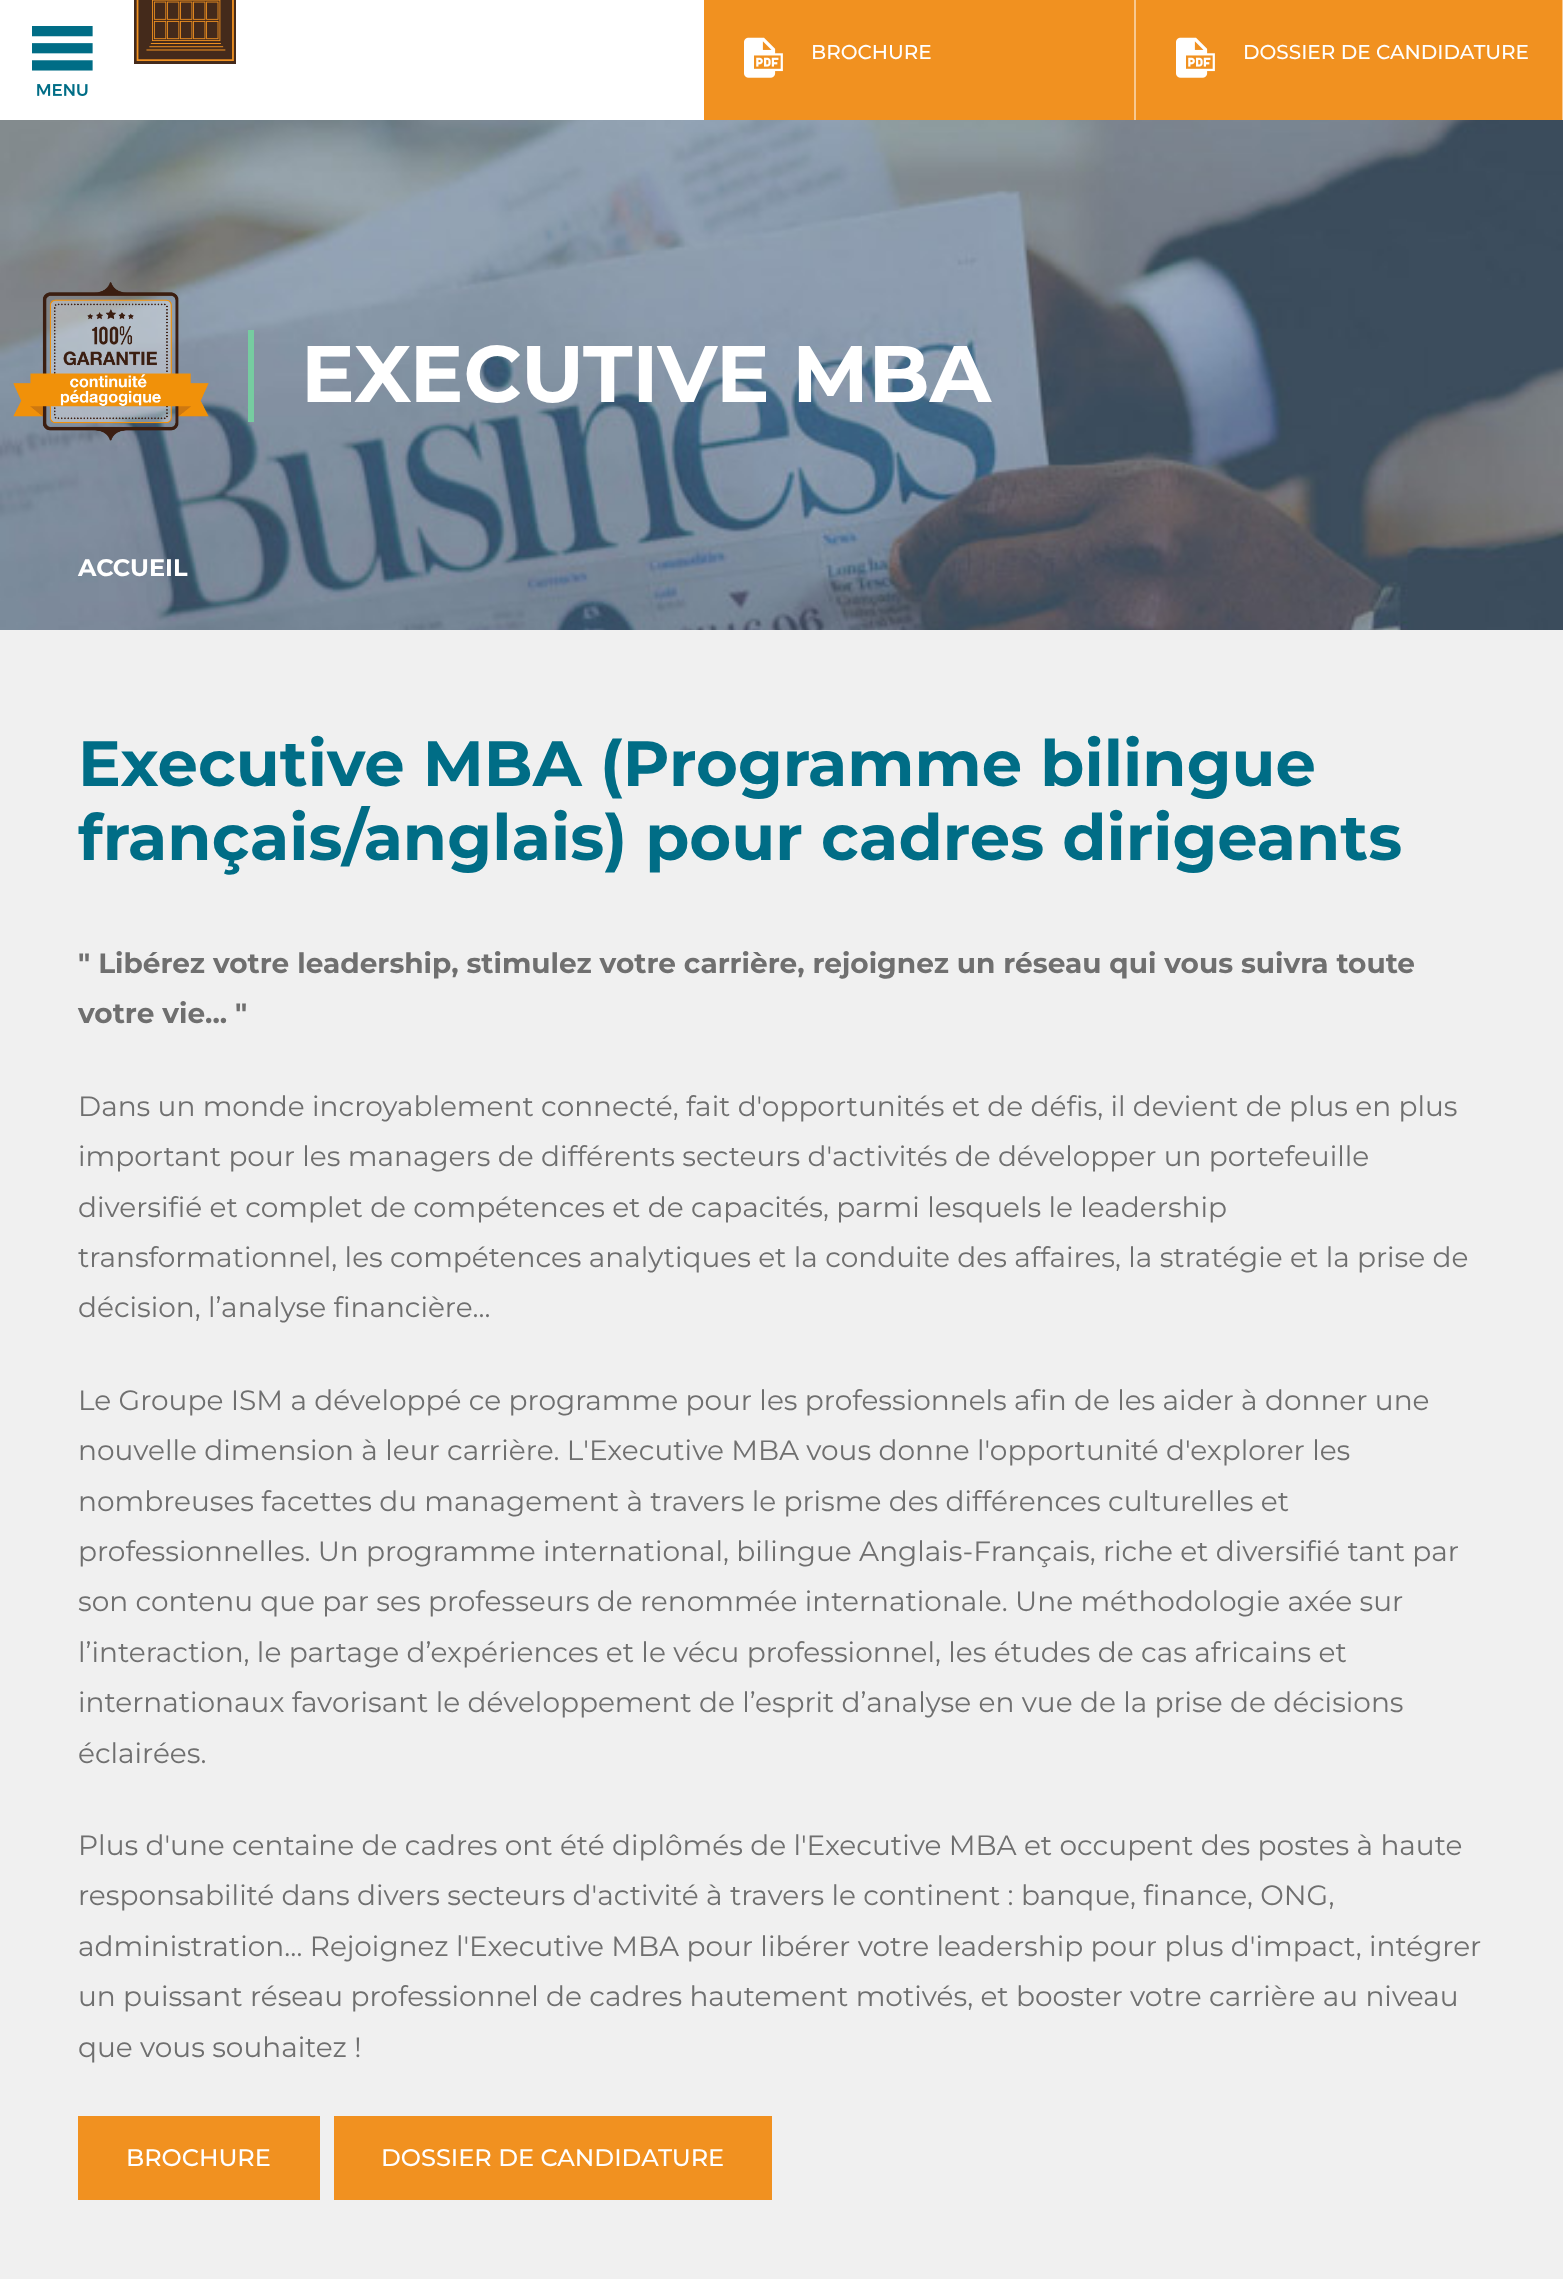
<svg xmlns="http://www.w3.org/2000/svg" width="1563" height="2279">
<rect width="100%" height="100%" fill="#fff"/>
<image x="32" y="26" width="61" height="70" href="media/1.png"/>
<image x="134" y="0" width="102" height="64" href="media/2.png"/>
<rect x="704" width="430" height="120" fill="#f19120"/>
<image x="744" y="37" width="39" height="41" href="media/3.png"/>
<text x="811" y="59" style="font-family:Montserrat;font-size:20px;font-weight:500;fill:#fff">BROCHURE</text>
<rect x="1136" width="426" height="120" fill="#f19120"/>
<rect x="1562" width="1" height="120" fill="#f8c890"/>
<rect x="1134" width="2" height="120" fill="#f8c890"/>
<image x="1176" y="37" width="39" height="41" href="media/3.png"/>
<text x="1243" y="59" style="font-family:Montserrat;font-size:20px;font-weight:500;fill:#fff">DOSSIER DE CANDIDATURE</text>
<image x="0" y="120" width="1563" height="510" href="media/4.png"/>
<image x="13" y="282" width="196" height="159" href="media/5.png"/>
<rect x="248" y="330" width="6" height="92" fill="#76cca0"/>
<text x="301" y="402" style="font-family:Montserrat;font-size:80px;font-weight:bold;fill:#fff">EXECUTIVE MBA</text>
<text x="78" y="576" style="font-family:Montserrat;font-size:24px;font-weight:bold;fill:#fff">ACCUEIL</text>
<rect y="630" width="1563" height="1649" fill="#f0f0f0"/>
<text x="78" y="786" style="font-family:Montserrat;font-size:64px;font-weight:bold;fill:#006d86">Executive MBA (Programme bilingue</text>
<text x="78" y="860" style="font-family:Montserrat;font-size:64px;font-weight:bold;fill:#006d86">français/anglais) pour cadres dirigeants</text>
<text x="78" y="973" style="font-family:Montserrat;font-size:28px;font-weight:bold;fill:#6f6f6f">" Libérez votre leadership, stimulez votre carrière, rejoignez un réseau qui vous suivra toute</text>
<text x="78" y="1023" style="font-family:Montserrat;font-size:28px;font-weight:bold;fill:#6f6f6f">votre vie... "</text>
<text x="78" y="1116" style="font-family:Montserrat;font-size:28px;fill:#6f6f6f">Dans un monde incroyablement connecté, fait d'opportunités et de défis, il devient de plus en plus</text>
<text x="78" y="1166" style="font-family:Montserrat;font-size:28px;fill:#6f6f6f">important pour les managers de différents secteurs d'activités de développer un portefeuille</text>
<text x="78" y="1217" style="font-family:Montserrat;font-size:28px;fill:#6f6f6f">diversifié et complet de compétences et de capacités, parmi lesquels le leadership</text>
<text x="78" y="1267" style="font-family:Montserrat;font-size:28px;fill:#6f6f6f">transformationnel, les compétences analytiques et la conduite des affaires, la stratégie et la prise de</text>
<text x="78" y="1317" style="font-family:Montserrat;font-size:28px;fill:#6f6f6f">décision, l’analyse financière...</text>
<text x="78" y="1410" style="font-family:Montserrat;font-size:28px;fill:#6f6f6f">Le Groupe ISM a développé ce programme pour les professionnels afin de les aider à donner une</text>
<text x="78" y="1460" style="font-family:Montserrat;font-size:28px;fill:#6f6f6f">nouvelle dimension à leur carrière. L'Executive MBA vous donne l'opportunité d'explorer les</text>
<text x="78" y="1511" style="font-family:Montserrat;font-size:28px;fill:#6f6f6f">nombreuses facettes du management à travers le prisme des différences culturelles et</text>
<text x="78" y="1561" style="font-family:Montserrat;font-size:28px;fill:#6f6f6f">professionnelles. Un programme international, bilingue Anglais-Français, riche et diversifié tant par</text>
<text x="78" y="1611" style="font-family:Montserrat;font-size:28px;fill:#6f6f6f">son contenu que par ses professeurs de renommée internationale. Une méthodologie axée sur</text>
<text x="78" y="1662" style="font-family:Montserrat;font-size:28px;fill:#6f6f6f">l’interaction, le partage d’expériences et le vécu professionnel, les études de cas africains et</text>
<text x="78" y="1712" style="font-family:Montserrat;font-size:28px;fill:#6f6f6f">internationaux favorisant le développement de l’esprit d’analyse en vue de la prise de décisions</text>
<text x="78" y="1763" style="font-family:Montserrat;font-size:28px;fill:#6f6f6f">éclairées.</text>
<text x="78" y="1855" style="font-family:Montserrat;font-size:28px;fill:#6f6f6f">Plus d'une centaine de cadres ont été diplômés de l'Executive MBA et occupent des postes à haute</text>
<text x="78" y="1905" style="font-family:Montserrat;font-size:28px;fill:#6f6f6f">responsabilité dans divers secteurs d'activité à travers le continent : banque, finance, ONG,</text>
<text x="78" y="1956" style="font-family:Montserrat;font-size:28px;fill:#6f6f6f">administration… Rejoignez l'Executive MBA pour libérer votre leadership pour plus d'impact, intégrer</text>
<text x="78" y="2006" style="font-family:Montserrat;font-size:28px;fill:#6f6f6f">un puissant réseau professionnel de cadres hautement motivés, et booster votre carrière au niveau</text>
<text x="78" y="2057" style="font-family:Montserrat;font-size:28px;fill:#6f6f6f">que vous souhaitez !</text>
<rect x="78" y="2116" width="242" height="84" fill="#f19120"/>
<text x="126" y="2166" style="font-family:Montserrat;font-size:24px;font-weight:500;fill:#fff">BROCHURE</text>
<rect x="334" y="2116" width="438" height="84" fill="#f19120"/>
<text x="381" y="2166" style="font-family:Montserrat;font-size:24px;font-weight:500;fill:#fff">DOSSIER DE CANDIDATURE</text>
</svg>
